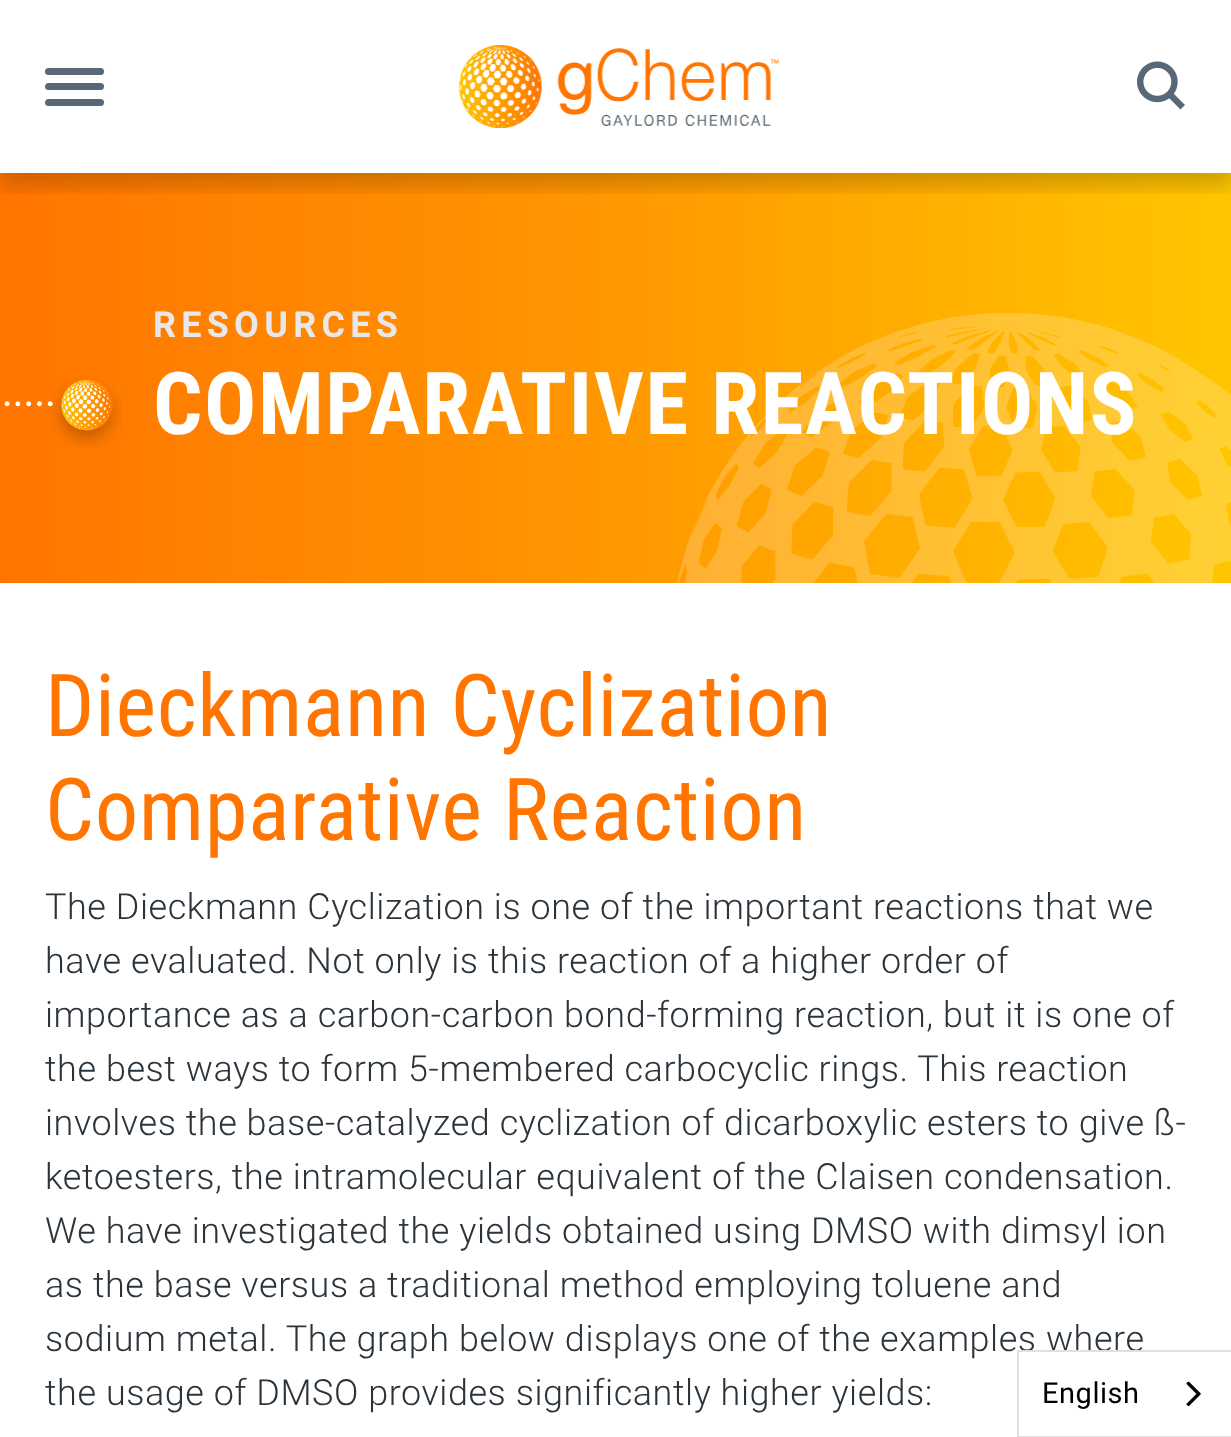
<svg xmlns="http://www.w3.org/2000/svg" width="1231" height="1437">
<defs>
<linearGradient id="g1" gradientUnits="userSpaceOnUse" x1="0" y1="378" x2="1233" y2="378"><stop offset="0" stop-color="#ff7500"/><stop offset="0.5" stop-color="#ff9800"/><stop offset="1" stop-color="#ffc600"/></linearGradient>
<clipPath id="clip1"><rect x="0" y="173" width="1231" height="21"/></clipPath>
</defs>
<rect width="100%" height="100%" fill="#fff"/>
<rect y="173" width="1231" height="410" fill="url(#g1)"/>
<g clip-path="url(#clip1)">
<rect y="11" width="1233" height="174" fill="#0000001a" filter="blur(11px)"/>
<rect y="11" width="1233" height="174" fill="#0000001a" filter="blur(11px)"/>
</g>
<rect x="45" y="83" width="59" height="7" rx="3.5" fill="#586877"/>
<rect x="45" y="68" width="59" height="7" rx="3.5" fill="#586877"/>
<rect x="45" y="99" width="59" height="7" rx="3.5" fill="#586877"/>
<image x="458" y="45" width="321" height="83" href="media/1.png"/>
<image x="1137" y="61" width="48" height="49" href="media/2.png"/>
<text x="153" y="337" style="font-family:Roboto;font-size:36px;font-weight:bold;letter-spacing:5.25px;fill:#e6e8eb">RESOURCES</text>
<image x="4" y="378" width="118" height="70" href="media/3.png"/>
<image x="677" y="313" width="554" height="270" href="media/4.png"/>
<text x="153" y="434" style="font-family:Roboto Condensed;font-size:86.75px;font-weight:bold;letter-spacing:1.6px;fill:#fff">COMPARATIVE REACTIONS</text>
<text x="45" y="736" style="font-family:Roboto Condensed;font-size:86.75px;letter-spacing:0.55px;fill:#ff7500">Dieckmann Cyclization</text>
<text x="45" y="840" style="font-family:Roboto Condensed;font-size:86.75px;letter-spacing:0.55px;fill:#ff7500">Comparative Reaction</text>
<text x="45" y="919" style="font-family:Roboto;font-size:36px;font-weight:300;letter-spacing:0.55px;fill:#2c343b">The Dieckmann Cyclization is one of the important reactions that we</text>
<text x="45" y="973" style="font-family:Roboto;font-size:36px;font-weight:300;letter-spacing:0.55px;fill:#2c343b">have evaluated. Not only is this reaction of a higher order of</text>
<text x="45" y="1027" style="font-family:Roboto;font-size:36px;font-weight:300;letter-spacing:0.55px;fill:#2c343b">importance as a carbon-carbon bond-forming reaction, but it is one of</text>
<text x="45" y="1081" style="font-family:Roboto;font-size:36px;font-weight:300;letter-spacing:0.55px;fill:#2c343b">the best ways to form 5-membered carbocyclic rings. This reaction</text>
<text x="45" y="1135" style="font-family:Roboto;font-size:36px;font-weight:300;letter-spacing:0.55px;fill:#2c343b">involves the base-catalyzed cyclization of dicarboxylic esters to give ß-</text>
<text x="45" y="1189" style="font-family:Roboto;font-size:36px;font-weight:300;letter-spacing:0.55px;fill:#2c343b">ketoesters, the intramolecular equivalent of the Claisen condensation.</text>
<text x="45" y="1243" style="font-family:Roboto;font-size:36px;font-weight:300;letter-spacing:0.55px;fill:#2c343b">We have investigated the yields obtained using DMSO with dimsyl ion</text>
<text x="45" y="1297" style="font-family:Roboto;font-size:36px;font-weight:300;letter-spacing:0.55px;fill:#2c343b">as the base versus a traditional method employing toluene and</text>
<text x="45" y="1351" style="font-family:Roboto;font-size:36px;font-weight:300;letter-spacing:0.55px;fill:#2c343b">sodium metal. The graph below displays one of the examples where</text>
<text x="45" y="1405" style="font-family:Roboto;font-size:36px;font-weight:300;letter-spacing:0.55px;fill:#2c343b">the usage of DMSO provides significantly higher yields:</text>
<rect x="1018" y="1351" width="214" height="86" fill="none" stroke="#e0e0e0" stroke-width="2"/>
<text x="1042" y="1403" style="font-family:Roboto;font-size:29px;letter-spacing:0.55px;fill:#000">English</text>
<image x="1186" y="1381" width="15" height="26" href="media/5.png"/>
</svg>
